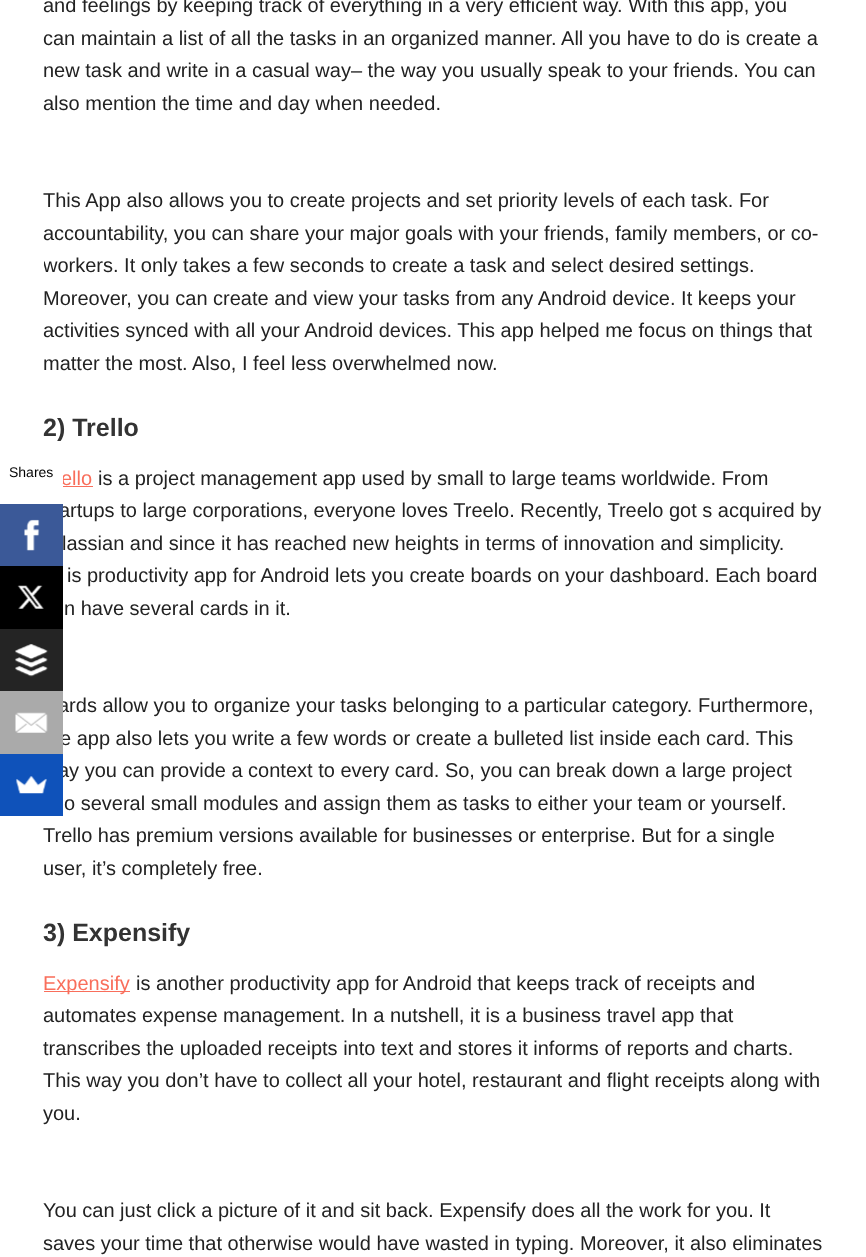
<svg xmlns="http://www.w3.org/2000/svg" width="866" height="1257">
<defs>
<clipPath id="clip1"><rect x="44" width="779" height="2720"/></clipPath>
</defs>
<rect width="100%" height="100%" fill="#fff"/>
<text x="43" y="436" style="font-family:Liberation Sans;font-size:25px;font-weight:bold;fill:#333">2) Trello</text>
<text x="61" y="485" style="font-family:Liberation Sans;font-size:20px;fill:#f96e5b">ello</text>
<rect x="57" y="441" width="6" height="42" fill="#fff"/>
<text x="9" y="477" style="font-family:Liberation Sans;font-size:14px;fill:#000">Shares</text>
<text x="59" y="517" style="font-family:Liberation Sans;font-size:20px;fill:#222">artups to large corporations, everyone loves Treelo. Recently, Treelo got s acquired by</text>
<rect y="504" width="63" height="62" fill="#3b5998"/>
<image x="24" y="519" width="16" height="32" href="media/1.png"/>
<rect y="566" width="63" height="63" fill="#000"/>
<image x="17" y="585" width="27" height="24" href="media/2.png"/>
<rect y="629" width="63" height="62" fill="#242424"/>
<image x="15" y="644" width="33" height="33" href="media/3.png"/>
<text x="58" y="712" style="font-family:Liberation Sans;font-size:20px;fill:#222">ards allow you to organize your tasks belonging to a particular category. Furthermore,</text>
<text x="60" y="745" style="font-family:Liberation Sans;font-size:20px;fill:#222">e app also lets you write a few words or create a bulleted list inside each card. This</text>
<rect y="691" width="63" height="63" fill="#aaa"/>
<image x="15" y="712" width="33" height="21" href="media/4.png"/>
<text x="58" y="777" style="font-family:Liberation Sans;font-size:20px;fill:#222">ay you can provide a context to every card. So, you can break down a large project</text>
<rect y="754" width="63" height="62" fill="#0f52ba"/>
<image x="16" y="776" width="31" height="18" href="media/5.png"/>
<text x="43" y="12" style="font-family:Liberation Sans;font-size:20px;fill:#222">and feelings by keeping track of everything in a very efficient way. With this app, you</text>
<text x="43" y="45" style="font-family:Liberation Sans;font-size:20px;fill:#222">can maintain a list of all the tasks in an organized manner. All you have to do is create a</text>
<text x="43" y="77" style="font-family:Liberation Sans;font-size:20px;fill:#222">new task and write in a casual way– the way you usually speak to your friends. You can</text>
<text x="43" y="110" style="font-family:Liberation Sans;font-size:20px;fill:#222">also mention the time and day when needed.</text>
<text x="43" y="207" style="font-family:Liberation Sans;font-size:20px;fill:#222">This App also allows you to create projects and set priority levels of each task. For</text>
<text x="43" y="240" style="font-family:Liberation Sans;font-size:20px;fill:#222">accountability, you can share your major goals with your friends, family members, or co-</text>
<g clip-path="url(#clip1)">
<text x="43" y="272" style="font-family:Liberation Sans;font-size:20px;fill:#222">workers. It only takes a few seconds to create a task and select desired settings.</text>
</g>
<text x="43" y="305" style="font-family:Liberation Sans;font-size:20px;fill:#222">Moreover, you can create and view your tasks from any Android device. It keeps your</text>
<text x="43" y="337" style="font-family:Liberation Sans;font-size:20px;fill:#222">activities synced with all your Android devices. This app helped me focus on things that</text>
<text x="43" y="370" style="font-family:Liberation Sans;font-size:20px;fill:#222">matter the most. Also, I feel less overwhelmed now.</text>
<rect x="63" y="486" width="30" height="1" fill="#f96e5b"/>
<text x="98" y="485" style="font-family:Liberation Sans;font-size:20px;fill:#222">is a project management app used by small to large teams worldwide. From</text>
<text x="62" y="550" style="font-family:Liberation Sans;font-size:20px;fill:#222">lassian and since it has reached new heights in terms of innovation and simplicity.</text>
<text x="67" y="582" style="font-family:Liberation Sans;font-size:20px;fill:#222">is productivity app for Android lets you create boards on your dashboard. Each board</text>
<text x="64" y="615" style="font-family:Liberation Sans;font-size:20px;fill:#222">n have several cards in it.</text>
<text x="64" y="810" style="font-family:Liberation Sans;font-size:20px;fill:#222">o several small modules and assign them as tasks to either your team or yourself.</text>
<text x="43" y="842" style="font-family:Liberation Sans;font-size:20px;fill:#222">Trello has premium versions available for businesses or enterprise. But for a single</text>
<text x="43" y="875" style="font-family:Liberation Sans;font-size:20px;fill:#222">user, it’s completely free.</text>
<text x="43" y="941" style="font-family:Liberation Sans;font-size:25px;font-weight:bold;fill:#333">3) Expensify</text>
<rect x="44" y="991" width="86" height="1" fill="#f96e5b"/>
<text x="43" y="990" style="font-family:Liberation Sans;font-size:20px;fill:#f96e5b">Expensify</text>
<text x="136" y="990" style="font-family:Liberation Sans;font-size:20px;fill:#222">is another productivity app for Android that keeps track of receipts and</text>
<text x="43" y="1022" style="font-family:Liberation Sans;font-size:20px;fill:#222">automates expense management. In a nutshell, it is a business travel app that</text>
<text x="43" y="1055" style="font-family:Liberation Sans;font-size:20px;fill:#222">transcribes the uploaded receipts into text and stores it informs of reports and charts.</text>
<text x="43" y="1087" style="font-family:Liberation Sans;font-size:20px;fill:#222">This way you don’t have to collect all your hotel, restaurant and flight receipts along with</text>
<text x="43" y="1120" style="font-family:Liberation Sans;font-size:20px;fill:#222">you.</text>
<text x="43" y="1217" style="font-family:Liberation Sans;font-size:20px;fill:#222">You can just click a picture of it and sit back. Expensify does all the work for you. It</text>
<text x="43" y="1250" style="font-family:Liberation Sans;font-size:20px;fill:#222">saves your time that otherwise would have wasted in typing. Moreover, it also eliminates</text>
</svg>
